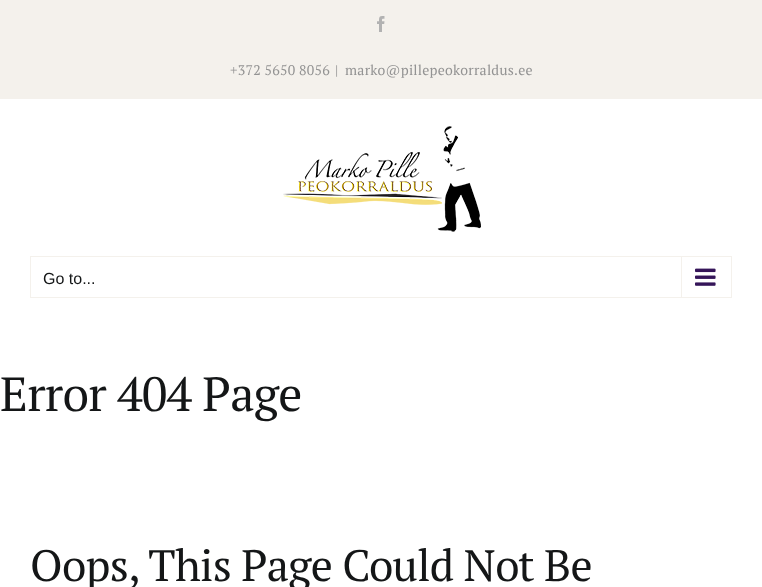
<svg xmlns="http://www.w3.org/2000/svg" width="762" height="587">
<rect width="100%" height="100%" fill="#fff"/>
<rect width="762" height="99" fill="#f4f1ec"/>
<image x="377" y="16" width="8" height="16" href="media/1.png"/>
<text x="230" y="75" style="font-family:PT Serif;font-size:14px;letter-spacing:0.25px;fill:#939393">+372 5650 8056</text>
<text x="335" y="75" style="font-family:PT Serif;font-size:14px;letter-spacing:0.25px;fill:#939393">|</text>
<text x="345" y="75" style="font-family:PT Serif;font-size:14px;letter-spacing:0.25px;fill:#939393">marko@pillepeokorraldus.ee</text>
<image x="283" y="126" width="198" height="106" href="media/2.png"/>
<rect x="30.5" y="256.5" width="701" height="41" fill="none" stroke="#f4f1ec"/>
<text x="43" y="284" style="font-family:Liberation Sans;font-size:16px;fill:#141617">Go to...</text>
<rect x="681" y="257" width="1" height="40" fill="#f4f1ec"/>
<image x="695" y="268" width="21" height="18" href="media/3.png"/>
<text x="0" y="411" style="font-family:PT Serif;font-size:48px;letter-spacing:-0.75px;fill:#141617">Error 404 Page</text>
<text x="30" y="581" style="font-family:PT Serif;font-size:44px;letter-spacing:-0.65px;fill:#141617">Oops, This Page Could Not Be</text>
</svg>
